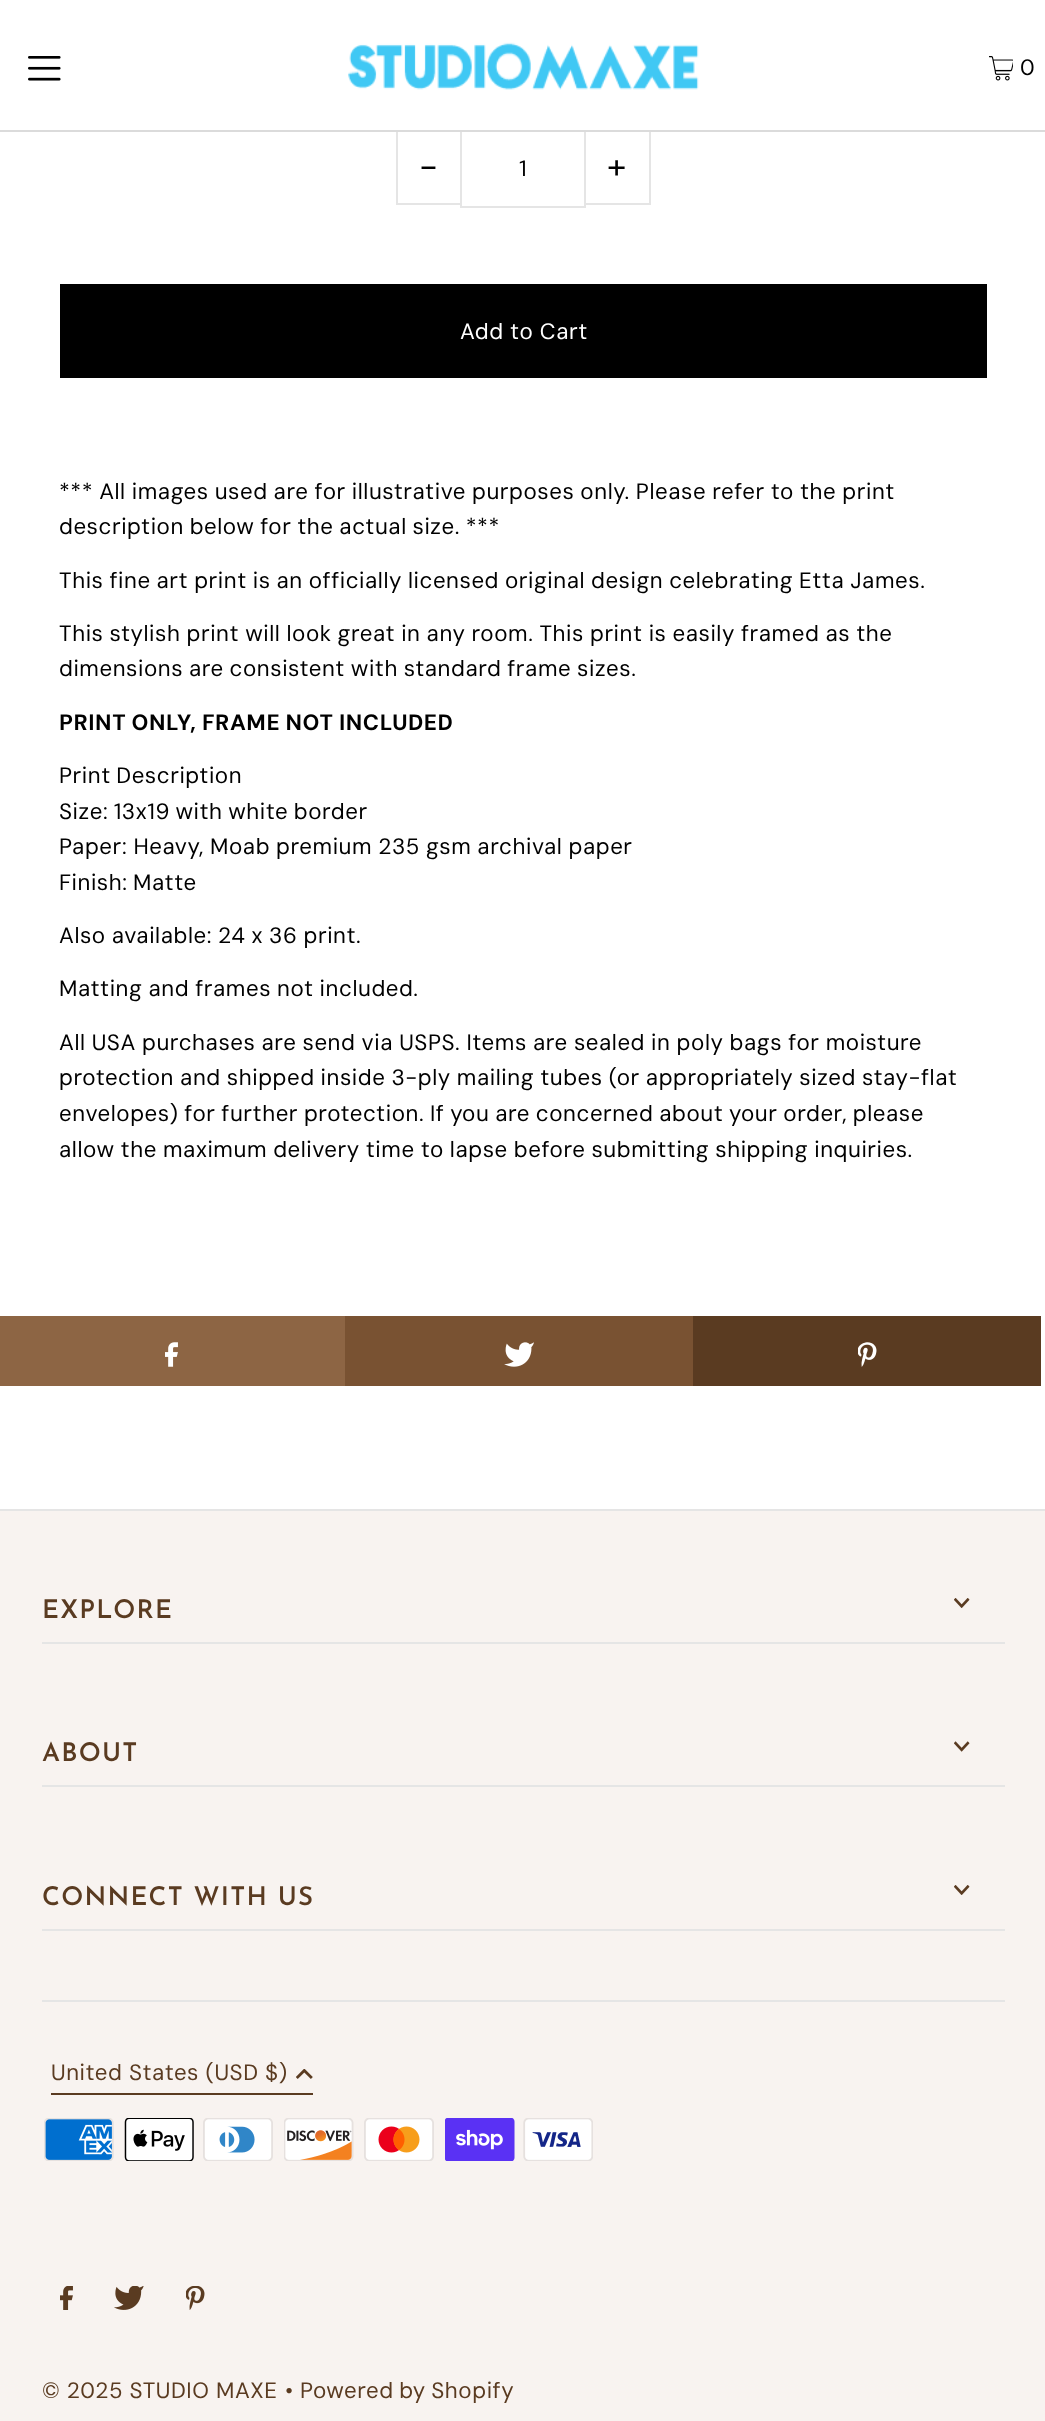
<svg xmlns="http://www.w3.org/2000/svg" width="1045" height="2421">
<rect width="100%" height="100%" fill="#fff"/>
<rect x="396" y="203" width="66" height="2" fill="#e5e5e5"/>
<rect x="396" y="128" width="2" height="77" fill="#e5e5e5"/>
<rect x="461" y="129" width="124" height="78" fill="none" stroke="#e5e5e5" stroke-width="2"/>
<rect x="649" y="128" width="2" height="77" fill="#e5e5e5"/>
<rect x="396" y="128" width="255" height="2" fill="#fff"/>
<rect y="130" width="1045" height="2" fill="#dbdbdb"/>
<image x="28" y="56" width="33" height="25" href="media/1.png"/>
<image x="348" y="42" width="351" height="48" href="media/2.png"/>
<image x="989" y="56" width="24" height="25" href="media/3.png"/>
<text x="1020" y="75" style="font-family:DM Sans;font-size:22.3px;letter-spacing:0.55px;fill:#000">0</text>
<text x="419" y="178" style="font-family:'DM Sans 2';font-size:35px;letter-spacing:1px;fill:#000">-</text>
<text x="519" y="176" style="font-family:DM Sans;font-size:22.3px;letter-spacing:0.55px;fill:#000">1</text>
<rect x="585" y="203" width="66" height="2" fill="#e5e5e5"/>
<text x="607" y="178" style="font-family:DM Sans;font-size:35px;letter-spacing:1px;fill:#000">+</text>
<rect x="60" y="284" width="927" height="94" fill="#000"/>
<text x="460" y="339" style="font-family:DM Sans;font-size:22.3px;letter-spacing:0.55px;fill:#fff">Add to Cart</text>
<text x="59" y="499" word-spacing="-0.5" style="font-family:DM Sans;font-size:22.3px;letter-spacing:0.55px;fill:#000">*** All images used are for illustrative purposes only. Please refer to the print</text>
<text x="59" y="534" word-spacing="-0.75" style="font-family:DM Sans;font-size:22.3px;letter-spacing:0.55px;fill:#000">description below for the actual size. ***</text>
<text x="59" y="588" word-spacing="-0.6" style="font-family:DM Sans;font-size:22.3px;letter-spacing:0.55px;fill:#000">This fine art print is an officially licensed original design celebrating Etta James.</text>
<text x="59" y="641" word-spacing="-0.5" style="font-family:DM Sans;font-size:22.3px;letter-spacing:0.55px;fill:#000">This stylish print will look great in any room. This print is easily framed as the</text>
<text x="59" y="676" word-spacing="-0.75" style="font-family:DM Sans;font-size:22.3px;letter-spacing:0.55px;fill:#000">dimensions are consistent with standard frame sizes.</text>
<text x="59" y="730" word-spacing="-0.5" style="font-family:DM Sans;font-size:22.3px;font-weight:bold;letter-spacing:0.55px;fill:#000">PRINT ONLY, FRAME NOT INCLUDED</text>
<text x="59" y="783" word-spacing="-1" style="font-family:DM Sans;font-size:22.3px;letter-spacing:0.55px;fill:#000">Print Description</text>
<text x="59" y="819" word-spacing="-1" style="font-family:DM Sans;font-size:22.3px;letter-spacing:0.55px;fill:#000">Size: 13x19 with white border</text>
<text x="59" y="854" word-spacing="-0.5" style="font-family:DM Sans;font-size:22.3px;letter-spacing:0.55px;fill:#000">Paper: Heavy, Moab premium 235 gsm archival paper</text>
<text x="59" y="890" word-spacing="-1" style="font-family:DM Sans;font-size:22.3px;letter-spacing:0.55px;fill:#000">Finish: Matte</text>
<text x="59" y="943" word-spacing="-0.5" style="font-family:DM Sans;font-size:22.3px;letter-spacing:0.55px;fill:#000">Also available: 24 x 36 print.</text>
<text x="59" y="996" word-spacing="-0.5" style="font-family:DM Sans;font-size:22.3px;letter-spacing:0.55px;fill:#000">Matting and frames not included.</text>
<text x="59" y="1050" word-spacing="-0.4" style="font-family:DM Sans;font-size:22.3px;letter-spacing:0.55px;fill:#000">All USA purchases are send via USPS. Items are sealed in poly bags for moisture</text>
<text x="59" y="1085" word-spacing="-0.5" style="font-family:DM Sans;font-size:22.3px;letter-spacing:0.55px;fill:#000">protection and shipped inside 3-ply mailing tubes (or appropriately sized stay-flat</text>
<text x="59" y="1121" word-spacing="-0.75" style="font-family:DM Sans;font-size:22.3px;letter-spacing:0.55px;fill:#000">envelopes) for further protection. If you are concerned about your order, please</text>
<text x="59" y="1157" word-spacing="-0.5" style="font-family:DM Sans;font-size:22.3px;letter-spacing:0.55px;fill:#000">allow the maximum delivery time to lapse before submitting shipping inquiries.</text>
<rect y="1316" width="345" height="70" fill="#8d6544"/>
<image x="165" y="1342" width="13" height="25" href="media/4.png"/>
<rect x="345" y="1316" width="348" height="70" fill="#795232"/>
<image x="504" y="1342" width="30" height="25" href="media/5.png"/>
<rect x="693" y="1316" width="348" height="70" fill="#5a3b21"/>
<image x="858" y="1342" width="19" height="25" href="media/6.png"/>
<rect y="1511" width="1045" height="910" fill="#f8f3f0"/>
<rect y="1509" width="1045" height="2" fill="#e5e5e5"/>
<rect x="42" y="1642" width="963" height="2" fill="#e5e5e5"/>
<text x="42" y="1618" style="font-family:Josefin Sans;font-size:25.75px;font-weight:600;letter-spacing:1.25px;fill:#5a3b21">EXPLORE</text>
<image x="954" y="1598" width="16" height="10" href="media/7.png"/>
<rect x="42" y="1785" width="963" height="2" fill="#e5e5e5"/>
<text x="42" y="1761" style="font-family:Josefin Sans;font-size:25.75px;font-weight:600;letter-spacing:1.25px;fill:#5a3b21">ABOUT</text>
<image x="954" y="1741" width="16" height="11" href="media/8.png"/>
<rect x="42" y="1929" width="963" height="2" fill="#e5e5e5"/>
<text x="42" y="1905" style="font-family:Josefin Sans;font-size:25.75px;font-weight:600;letter-spacing:1.25px;fill:#5a3b21">CONNECT WITH US</text>
<image x="954" y="1885" width="16" height="10" href="media/7.png"/>
<rect x="42" y="2000" width="963" height="2" fill="#e5e5e5"/>
<rect x="51" y="2093" width="262" height="2" fill="#5a3b21"/>
<text x="51" y="2080" style="font-family:DM Sans;font-size:22.3px;letter-spacing:0.55px;fill:#5a3b21">United States (USD $)</text>
<image x="296" y="2069" width="17" height="10" href="media/9.png"/>
<image x="44" y="2118" width="70" height="43" href="media/10.png"/>
<image x="124" y="2118" width="70" height="43" href="media/11.png"/>
<image x="203" y="2118" width="70" height="43" href="media/12.png"/>
<image x="284" y="2118" width="70" height="43" href="media/13.png"/>
<image x="364" y="2118" width="70" height="43" href="media/14.png"/>
<image x="445" y="2118" width="70" height="43" href="media/15.png"/>
<image x="523" y="2118" width="70" height="43" href="media/16.png"/>
<image x="60" y="2286" width="13" height="24" href="media/17.png"/>
<image x="114" y="2286" width="30" height="24" href="media/18.png"/>
<image x="186" y="2286" width="19" height="24" href="media/19.png"/>
<text x="42" y="2398" style="font-family:DM Sans;font-size:22.3px;letter-spacing:0.55px;fill:#5a3b21">© 2025 STUDIO MAXE</text>
<text x="285" y="2398" style="font-family:DM Sans;font-size:22.3px;letter-spacing:0.55px;fill:#5a3b21">•</text>
<text x="300" y="2398" word-spacing="-1" style="font-family:DM Sans;font-size:22.3px;letter-spacing:0.55px;fill:#5a3b21">Powered by Shopify</text>
</svg>
